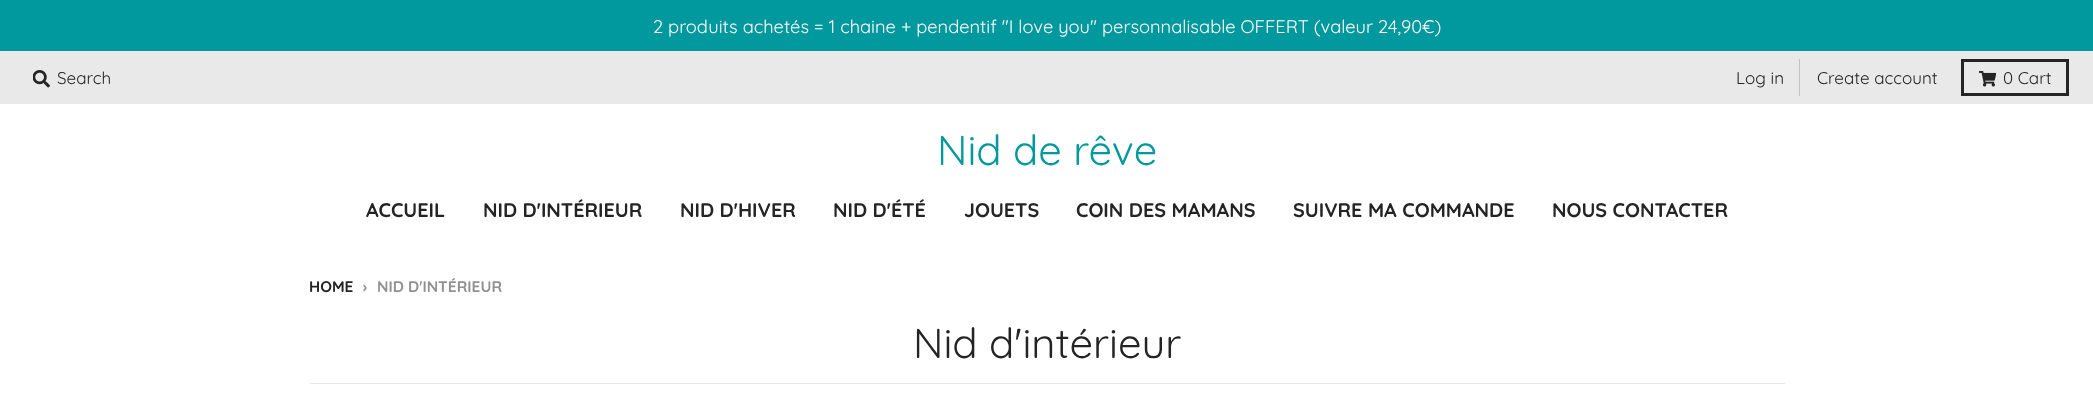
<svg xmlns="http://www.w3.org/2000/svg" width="2093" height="395">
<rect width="100%" height="100%" fill="#fff"/>
<rect width="2093" height="51" fill="#02999e"/>
<text x="653" y="33" style="font-family:Quicksand;font-size:18.3px;fill:#fff">2 produits achetés = 1 chaine + pendentif "I love you" personnalisable OFFERT (valeur 24,90€)</text>
<rect y="51" width="2093" height="53" fill="#e9e9e9"/>
<image x="33" y="70" width="17" height="18" href="media/1.png"/>
<text x="57" y="84" style="font-family:Quicksand;font-size:17px;fill:#242424">Search</text>
<rect x="1799" y="59" width="1" height="37" fill="#c1c1c1"/>
<text x="1736" y="84" style="font-family:Quicksand;font-size:17px;fill:#242424">Log in</text>
<text x="1817" y="84" style="font-family:Quicksand;font-size:17px;fill:#242424">Create account</text>
<rect x="1962.5" y="60.5" width="105" height="34" fill="none" stroke="#242424" stroke-width="3"/>
<image x="1979" y="71" width="17" height="16" href="media/2.png"/>
<text x="2003" y="84" style="font-family:Quicksand;font-size:17px;fill:#242424">0 Cart</text>
<text x="937" y="165" style="font-family:Quicksand;font-size:41.75px;fill:#02999e">Nid de rêve</text>
<text x="366" y="217" style="font-family:Quicksand;font-size:19.75px;font-weight:bold;fill:#242424">ACCUEIL</text>
<text x="483" y="217" style="font-family:Quicksand;font-size:19.75px;font-weight:bold;fill:#242424">NID D'INTÉRIEUR</text>
<text x="680" y="217" style="font-family:Quicksand;font-size:19.75px;font-weight:bold;fill:#242424">NID D'HIVER</text>
<text x="833" y="217" style="font-family:Quicksand;font-size:19.75px;font-weight:bold;fill:#242424">NID D'ÉTÉ</text>
<text x="964" y="217" style="font-family:Quicksand;font-size:19.75px;font-weight:bold;fill:#242424">JOUETS</text>
<text x="1076" y="217" style="font-family:Quicksand;font-size:19.75px;font-weight:bold;fill:#242424">COIN DES MAMANS</text>
<text x="1293" y="217" style="font-family:Quicksand;font-size:19.75px;font-weight:bold;fill:#242424">SUIVRE MA COMMANDE</text>
<text x="1552" y="217" style="font-family:Quicksand;font-size:19.75px;font-weight:bold;fill:#242424">NOUS CONTACTER</text>
<text x="309" y="292" style="font-family:Quicksand;font-size:15.5px;font-weight:bold;fill:#242424">HOME</text>
<text x="363" y="292" style="font-family:Quicksand;font-size:15.5px;font-weight:bold;fill:#919191">›</text>
<text x="377" y="292" style="font-family:Quicksand;font-size:15.5px;font-weight:bold;fill:#919191">NID D'INTÉRIEUR</text>
<rect x="310" y="383" width="1475" height="1" fill="#e9e9e9"/>
<text x="913" y="358" style="font-family:Quicksand;font-size:41.75px;fill:#242424">Nid d'intérieur</text>
</svg>
